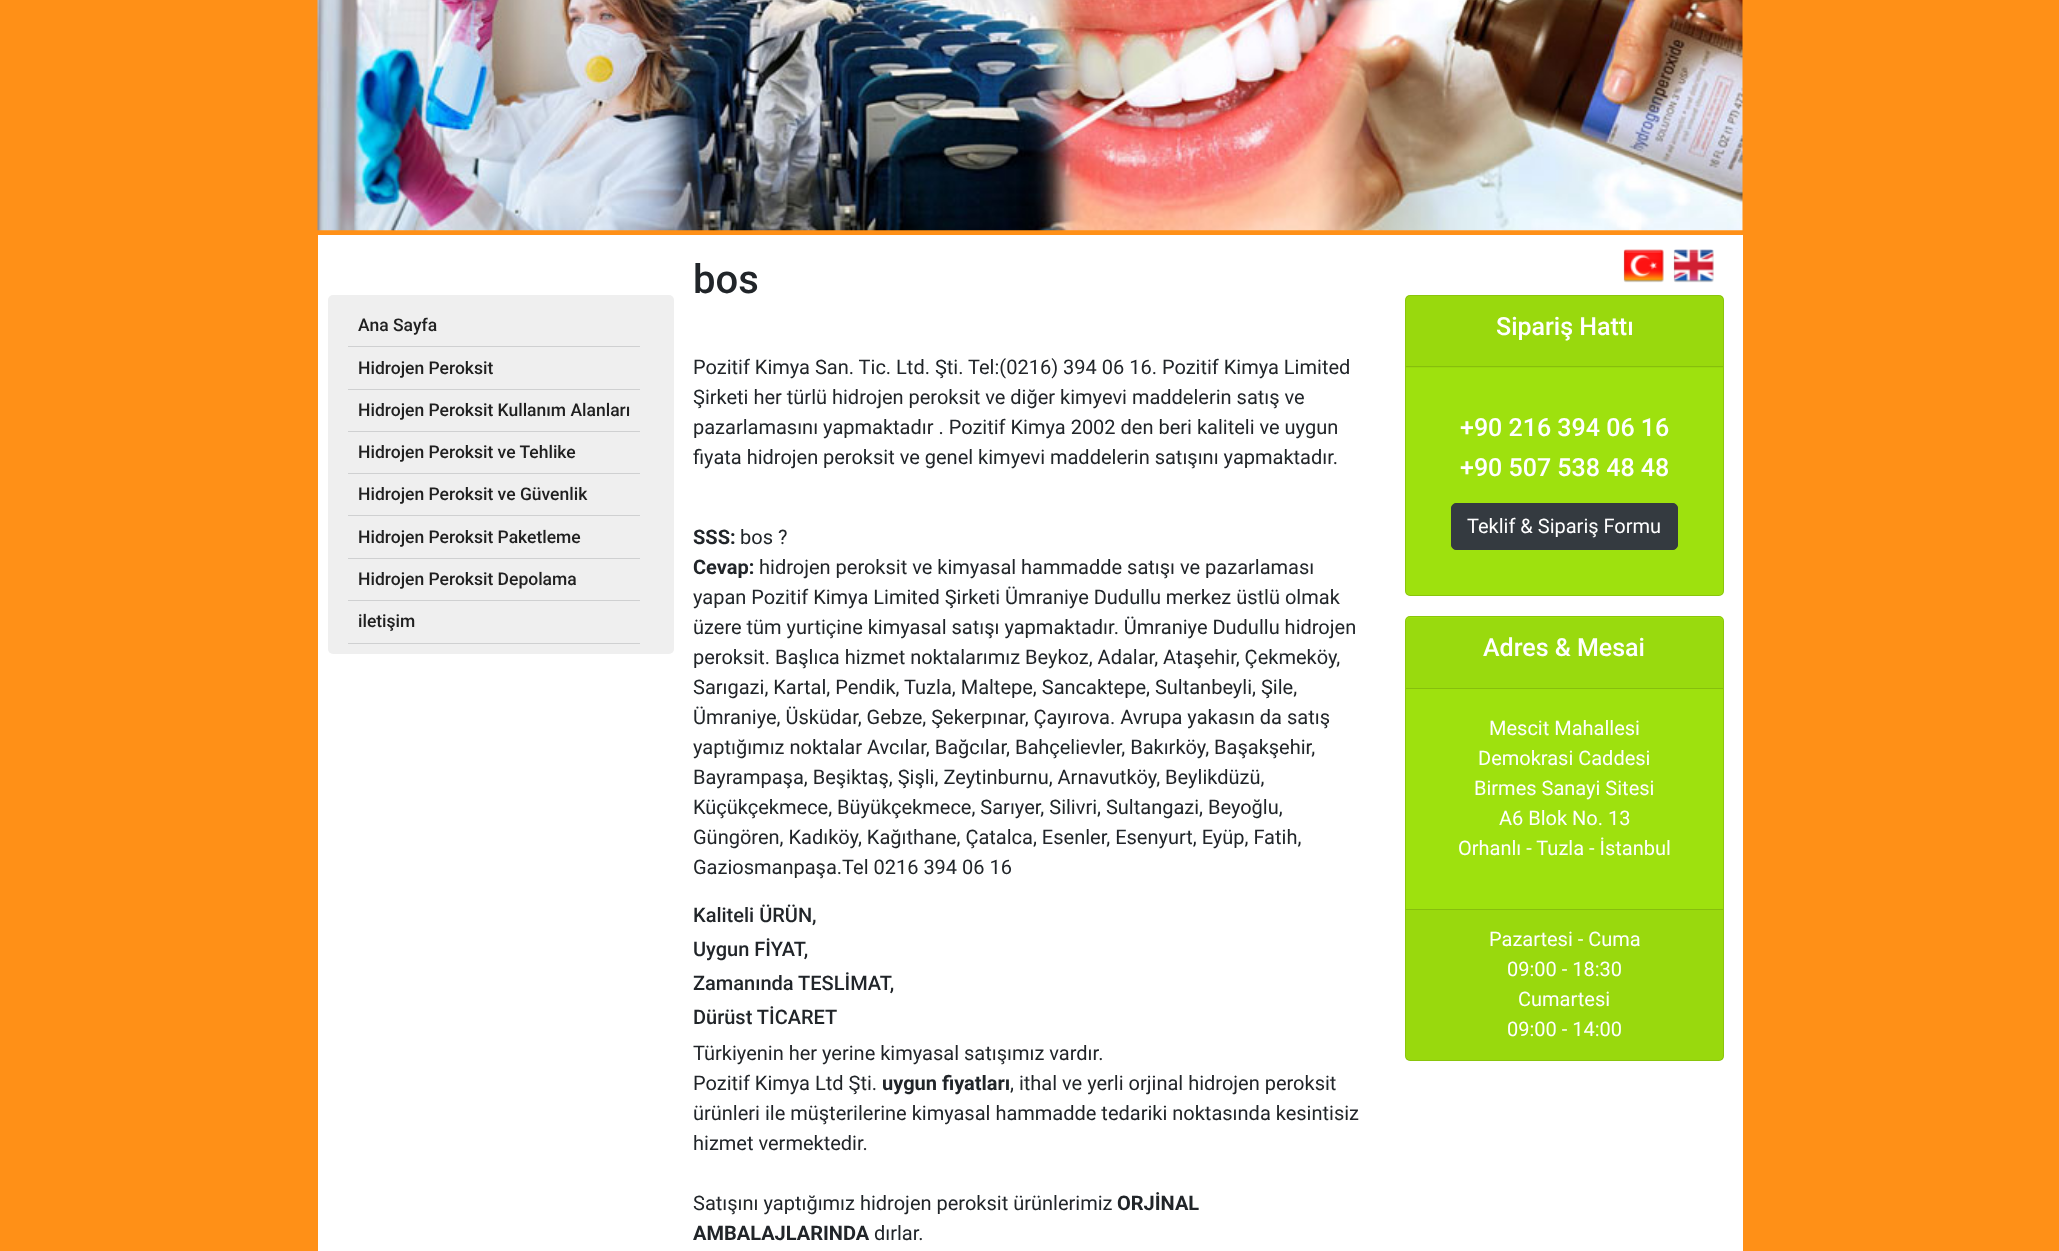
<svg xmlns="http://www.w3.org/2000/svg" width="2059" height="1251">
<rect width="100%" height="100%" fill="#ff9017"/>
<image x="317" y="0" width="1426" height="231" href="media/1.png"/>
<rect x="318" y="235" width="1425" height="1016" fill="#fff"/>
<rect x="328" y="295" width="346" height="359" rx="5" fill="#efefef"/>
<rect x="348" y="346" width="292" height="1" fill="#cfd0d1"/>
<text x="358" y="331" style="font-family:Roboto;font-size:17.5px;font-weight:500;fill:#202020">Ana Sayfa</text>
<rect x="348" y="389" width="292" height="1" fill="#cfd0d1"/>
<text x="358" y="374" style="font-family:Roboto;font-size:17.5px;font-weight:500;fill:#202020">Hidrojen Peroksit</text>
<rect x="348" y="431" width="292" height="1" fill="#cfd0d1"/>
<text x="358" y="416" style="font-family:Roboto;font-size:17.5px;font-weight:500;fill:#202020">Hidrojen Peroksit Kullanım Alanları</text>
<rect x="348" y="473" width="292" height="1" fill="#cfd0d1"/>
<text x="358" y="458" style="font-family:Roboto;font-size:17.5px;font-weight:500;fill:#202020">Hidrojen Peroksit ve Tehlike</text>
<rect x="348" y="515" width="292" height="1" fill="#cfd0d1"/>
<text x="358" y="500" style="font-family:Roboto;font-size:17.5px;font-weight:500;fill:#202020">Hidrojen Peroksit ve Güvenlik</text>
<rect x="348" y="558" width="292" height="1" fill="#cfd0d1"/>
<text x="358" y="543" style="font-family:Roboto;font-size:17.5px;font-weight:500;fill:#202020">Hidrojen Peroksit Paketleme</text>
<rect x="348" y="600" width="292" height="1" fill="#cfd0d1"/>
<text x="358" y="585" style="font-family:Roboto;font-size:17.5px;font-weight:500;fill:#202020">Hidrojen Peroksit Depolama</text>
<rect x="348" y="643" width="292" height="1" fill="#cfd0d1"/>
<text x="358" y="627" style="font-family:Roboto;font-size:17.5px;font-weight:500;fill:#202020">iletişim</text>
<text x="693" y="293" style="font-family:Roboto;font-size:40px;font-weight:500;fill:#212529">bos</text>
<text x="693" y="374" style="font-family:Roboto;font-size:20px;fill:#212529">Pozitif Kimya San. Tic. Ltd. Şti. Tel:(0216) 394 06 16. Pozitif Kimya Limited</text>
<text x="693" y="404" style="font-family:Roboto;font-size:20px;fill:#212529">Şirketi her türlü hidrojen peroksit ve diğer kimyevi maddelerin satış ve</text>
<text x="693" y="434" style="font-family:Roboto;font-size:20px;fill:#212529">pazarlamasını yapmaktadır . Pozitif Kimya 2002 den beri kaliteli ve uygun</text>
<text x="693" y="464" style="font-family:Roboto;font-size:20px;fill:#212529">fiyata hidrojen</text>
<text x="823" y="464" style="font-family:Roboto;font-size:20px;fill:#212529">peroksit ve genel kimyevi maddelerin satışını yapmaktadır.</text>
<text x="693" y="544" style="font-family:Roboto;font-size:20px;font-weight:bold;fill:#212529">SSS:</text>
<text x="740" y="544" style="font-family:Roboto;font-size:20px;fill:#212529">bos ?</text>
<text x="693" y="574" style="font-family:Roboto;font-size:20px;font-weight:bold;fill:#212529">Cevap:</text>
<text x="759" y="574" style="font-family:Roboto;font-size:20px;fill:#212529">hidrojen peroksit ve kimyasal hammadde satışı ve pazarlaması</text>
<text x="693" y="604" style="font-family:Roboto;font-size:20px;fill:#212529">yapan Pozitif Kimya Limited Şirketi Ümraniye Dudullu merkez üstlü olmak</text>
<text x="693" y="634" style="font-family:Roboto;font-size:20px;fill:#212529">üzere tüm yurtiçine kimyasal satışı yapmaktadır. Ümraniye Dudullu hidrojen</text>
<text x="693" y="664" style="font-family:Roboto;font-size:20px;fill:#212529">peroksit. Başlıca hizmet noktalarımız Beykoz, Adalar, Ataşehir, Çekmeköy,</text>
<text x="693" y="694" style="font-family:Roboto;font-size:20px;fill:#212529">Sarıgazi, Kartal, Pendik, Tuzla, Maltepe, Sancaktepe, Sultanbeyli, Şile,</text>
<text x="693" y="724" style="font-family:Roboto;font-size:20px;fill:#212529">Ümraniye, Üsküdar, Gebze, Şekerpınar, Çayırova. Avrupa yakasın da satış</text>
<text x="693" y="754" style="font-family:Roboto;font-size:20px;fill:#212529">yaptığımız noktalar Avcılar, Bağcılar, Bahçelievler, Bakırköy, Başakşehir,</text>
<text x="693" y="784" style="font-family:Roboto;font-size:20px;fill:#212529">Bayrampaşa, Beşiktaş, Şişli, Zeytinburnu, Arnavutköy, Beylikdüzü,</text>
<text x="693" y="814" style="font-family:Roboto;font-size:20px;fill:#212529">Küçükçekmece, Büyükçekmece, Sarıyer, Silivri, Sultangazi, Beyoğlu,</text>
<text x="693" y="844" style="font-family:Roboto;font-size:20px;fill:#212529">Güngören, Kadıköy, Kağıthane, Çatalca, Esenler, Esenyurt, Eyüp, Fatih,</text>
<text x="693" y="874" style="font-family:Roboto;font-size:20px;fill:#212529">Gaziosmanpaşa.Tel 0216 394 06 16</text>
<text x="693" y="922" style="font-family:Roboto;font-size:20px;font-weight:500;fill:#212529">Kaliteli ÜRÜN,</text>
<text x="693" y="956" style="font-family:Roboto;font-size:20px;font-weight:500;fill:#212529">Uygun FİYAT,</text>
<text x="693" y="990" style="font-family:Roboto;font-size:20px;font-weight:500;fill:#212529">Zamanında TESLİMAT,</text>
<text x="693" y="1024" style="font-family:Roboto;font-size:20px;font-weight:500;fill:#212529">Dürüst TİCARET</text>
<text x="693" y="1060" style="font-family:Roboto;font-size:20px;fill:#212529">Türkiyenin her yerine kimyasal satışımız vardır.</text>
<text x="693" y="1090" style="font-family:Roboto;font-size:20px;fill:#212529">Pozitif Kimya Ltd Şti.</text>
<text x="882" y="1090" style="font-family:Roboto;font-size:20px;font-weight:bold;fill:#212529">uygun fiyatları</text>
<text x="1010" y="1090" style="font-family:Roboto;font-size:20px;fill:#212529">, ithal ve yerli orjinal hidrojen peroksit</text>
<text x="693" y="1120" style="font-family:Roboto;font-size:20px;fill:#212529">ürünleri ile müşterilerine kimyasal hammadde tedariki noktasında kesintisiz</text>
<text x="693" y="1150" style="font-family:Roboto;font-size:20px;fill:#212529">hizmet vermektedir.</text>
<text x="693" y="1210" style="font-family:Roboto;font-size:20px;fill:#212529">Satışını yaptığımız hidrojen peroksit ürünlerimiz</text>
<text x="1117" y="1210" style="font-family:Roboto;font-size:20px;font-weight:bold;fill:#212529">ORJİNAL</text>
<text x="693" y="1240" style="font-family:Roboto;font-size:20px;font-weight:bold;fill:#212529">AMBALAJLARINDA</text>
<text x="874" y="1240" style="font-family:Roboto;font-size:20px;fill:#212529">dırlar.</text>
<image x="1623" y="249" width="41" height="34" href="media/2.png"/>
<image x="1673" y="249" width="41" height="34" href="media/3.png"/>
<rect x="1405" y="295" width="319" height="301" rx="5" fill="#9ee10e"/>
<rect x="1405.5" y="295.5" width="318" height="300" rx="4.5" fill="none" stroke="#0000001f"/>
<rect x="1406" y="296" width="317" height="72" fill="#00000008"/>
<rect x="1406" y="366" width="317" height="1" fill="#86bf0c"/>
<text x="1496" y="335" style="font-family:Roboto;font-size:25px;font-weight:500;fill:#fff">Sipariş Hattı</text>
<text x="1460" y="436" style="font-family:Roboto;font-size:25px;font-weight:500;fill:#fff">+90 216 394 06 16</text>
<text x="1460" y="476" style="font-family:Roboto;font-size:25px;font-weight:500;fill:#fff">+90 507 538 48 48</text>
<rect x="1451.5" y="503.5" width="226" height="46" rx="4.5" fill="#343a40" stroke="#343a40"/>
<text x="1467" y="533" style="font-family:Roboto;font-size:20px;fill:#fff">Teklif &amp; Sipariş Formu</text>
<rect x="1405" y="616" width="319" height="445" rx="5" fill="#9ee10e"/>
<rect x="1405.5" y="616.5" width="318" height="444" rx="4.5" fill="none" stroke="#0000001f"/>
<path d="M1410 618h309c2 0 4 2 4 4v67h-317v-67c0-2 2-4 4-4z" fill="#99da0e"/>
<rect x="1406" y="688" width="317" height="1" fill="#86bf0c"/>
<text x="1483" y="656" style="font-family:Roboto;font-size:25px;font-weight:500;fill:#fff">Adres &amp; Mesai</text>
<text x="1489" y="735" style="font-family:Roboto;font-size:20px;fill:#fff">Mescit Mahallesi</text>
<text x="1478" y="765" style="font-family:Roboto;font-size:20px;fill:#fff">Demokrasi Caddesi</text>
<text x="1474" y="795" style="font-family:Roboto;font-size:20px;fill:#fff">Birmes Sanayi Sitesi</text>
<text x="1499" y="825" style="font-family:Roboto;font-size:20px;fill:#fff">A6 Blok No. 13</text>
<text x="1458" y="855" style="font-family:Roboto;font-size:20px;fill:#fff">Orhanlı - Tuzla - İstanbul</text>
<rect x="1406" y="910" width="317" height="150" fill="#00000008"/>
<rect x="1406" y="909" width="317" height="1" fill="#86bf0c"/>
<text x="1489" y="946" style="font-family:Roboto;font-size:20px;fill:#fff">Pazartesi - Cuma</text>
<text x="1507" y="976" style="font-family:Roboto;font-size:20px;fill:#fff">09:00 - 18:30</text>
<text x="1518" y="1006" style="font-family:Roboto;font-size:20px;fill:#fff">Cumartesi</text>
<text x="1507" y="1036" style="font-family:Roboto;font-size:20px;fill:#fff">09:00 - 14:00</text>
</svg>
